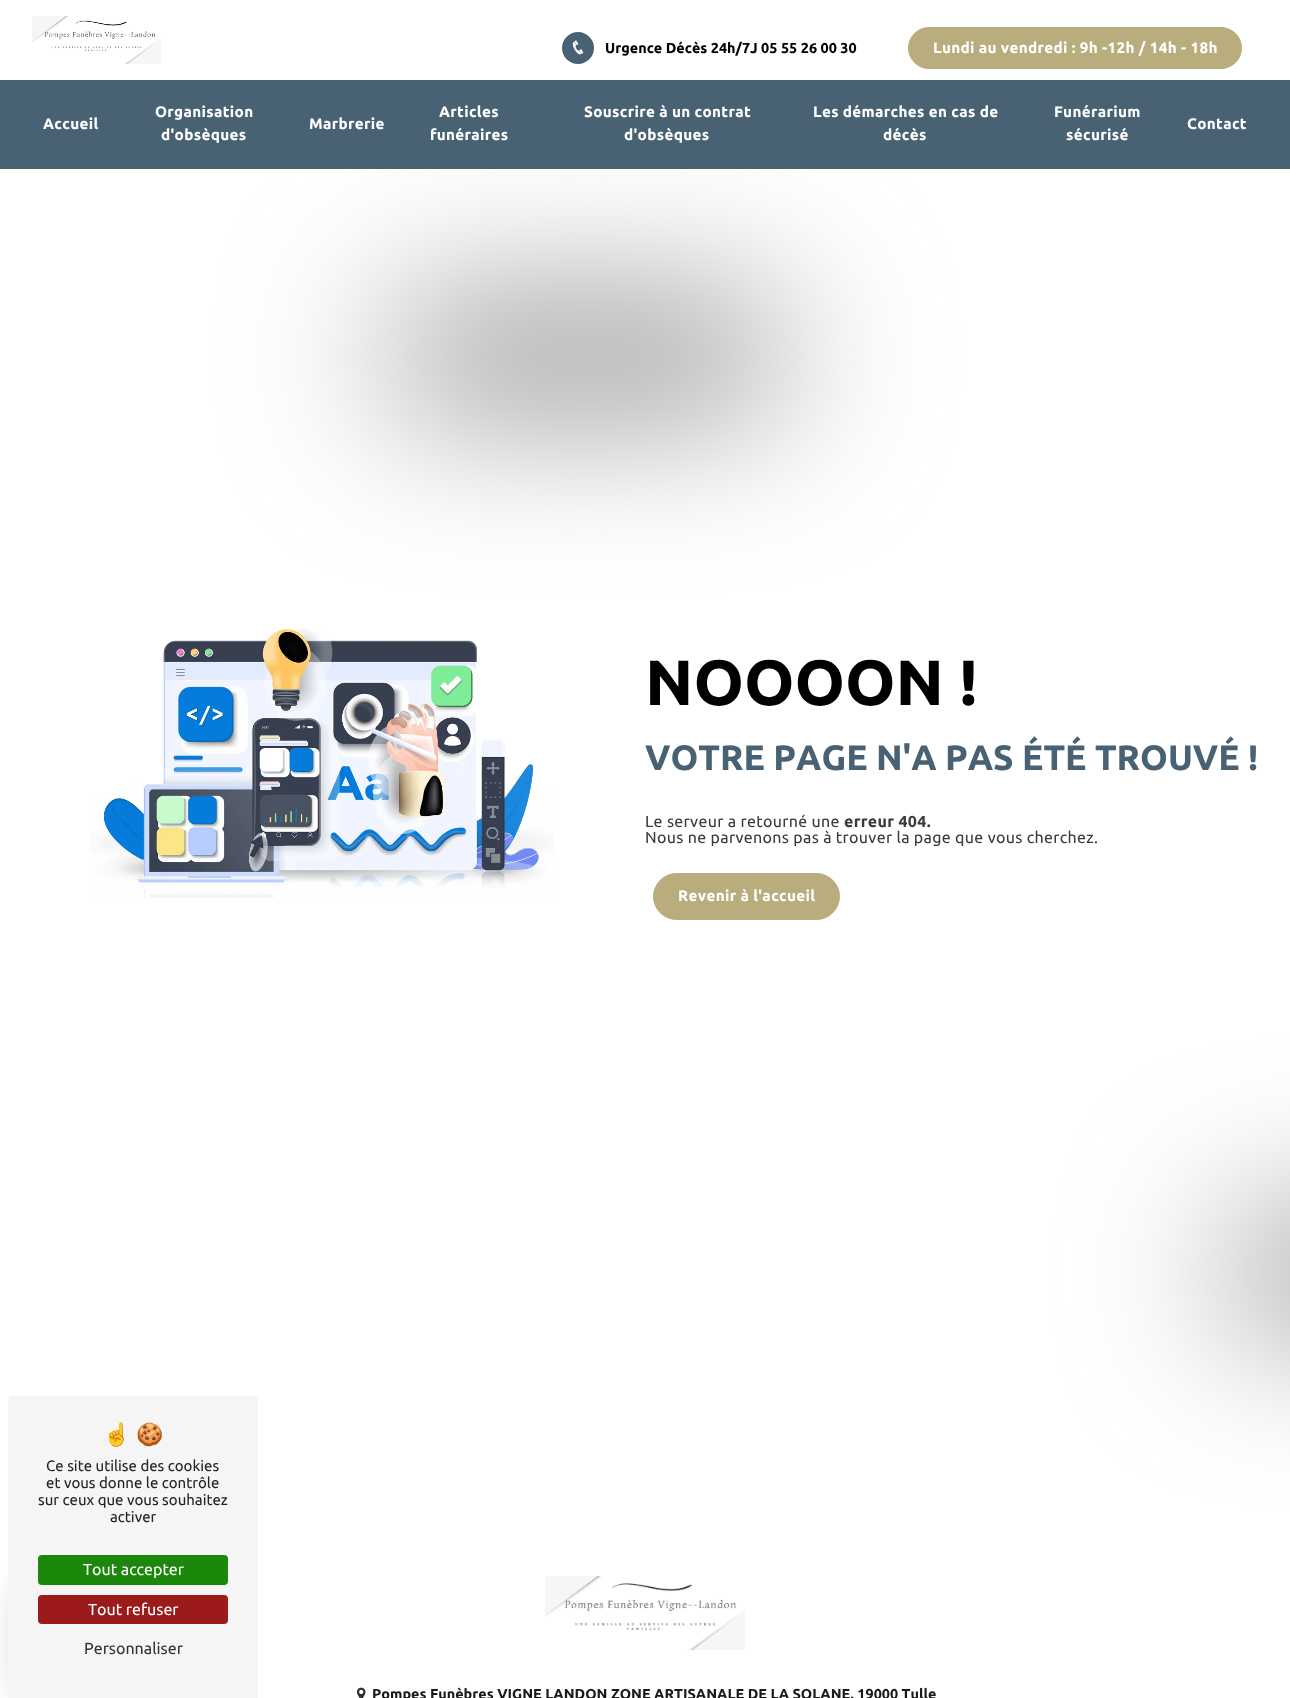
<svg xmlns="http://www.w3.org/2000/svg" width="1290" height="1698">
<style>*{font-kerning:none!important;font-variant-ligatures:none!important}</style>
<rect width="100%" height="100%" fill="#fff"/>
<image x="32" y="16" width="129" height="48" href="media/1.png"/>
<circle cx="578" cy="48" r="16" fill="#486273"/>
<image x="572" y="40" width="12" height="15" href="media/2.png"/>
<text x="605" y="53" style="font-family:Ubuntu;font-size:14.4px;font-weight:bold;fill:#000">Urgence Décès 24h/7J 05 55 26 00 30</text>
<rect x="387" y="306" width="400" height="100" rx="50" fill="#808080" filter="blur(80px)"/>
<rect x="908.5" y="27.5" width="333" height="41" rx="20.5" fill="#b9ad7d" stroke="#b9ad7d"/>
<text x="933" y="53" style="font-family:Ubuntu;font-size:15.25px;font-weight:bold;letter-spacing:0.32px;fill:#fff">Lundi au vendredi : 9h -12h / 14h - 18h</text>
<rect y="80" width="1290" height="89" fill="#486273"/>
<text x="43" y="129" style="font-family:Ubuntu;font-size:15.25px;font-weight:bold;letter-spacing:0.32px;fill:#fff">Accueil</text>
<text x="155" y="117" style="font-family:Ubuntu;font-size:15.25px;font-weight:bold;letter-spacing:0.32px;fill:#fff">Organisation</text>
<text x="161" y="140" style="font-family:Ubuntu;font-size:15.25px;font-weight:bold;letter-spacing:0.32px;fill:#fff">d'obsèques</text>
<text x="309" y="129" style="font-family:Ubuntu;font-size:15.25px;font-weight:bold;letter-spacing:0.32px;fill:#fff">Marbrerie</text>
<text x="439" y="117" style="font-family:Ubuntu;font-size:15.25px;font-weight:bold;letter-spacing:0.32px;fill:#fff">Articles</text>
<text x="430" y="140" style="font-family:Ubuntu;font-size:15.25px;font-weight:bold;letter-spacing:0.32px;fill:#fff">funéraires</text>
<text x="584" y="117" style="font-family:Ubuntu;font-size:15.25px;font-weight:bold;letter-spacing:0.32px;fill:#fff">Souscrire à un contrat</text>
<text x="624" y="140" style="font-family:Ubuntu;font-size:15.25px;font-weight:bold;letter-spacing:0.32px;fill:#fff">d'obsèques</text>
<text x="813" y="117" style="font-family:Ubuntu;font-size:15.25px;font-weight:bold;letter-spacing:0.32px;fill:#fff">Les démarches en cas de</text>
<text x="883" y="140" style="font-family:Ubuntu;font-size:15.25px;font-weight:bold;letter-spacing:0.32px;fill:#fff">décès</text>
<text x="1054" y="117" style="font-family:Ubuntu;font-size:15.25px;font-weight:bold;letter-spacing:0.32px;fill:#fff">Funérarium</text>
<text x="1066" y="140" style="font-family:Ubuntu;font-size:15.25px;font-weight:bold;letter-spacing:0.32px;fill:#fff">sécurisé</text>
<text x="1187" y="129" style="font-family:Ubuntu;font-size:15.25px;font-weight:bold;letter-spacing:0.32px;fill:#fff">Contact</text>
<rect x="1226" y="1223" width="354" height="100" rx="50" fill="#808080" filter="blur(80px)"/>
<image x="90" y="628" width="465" height="270" href="media/3.png"/>
<text x="645" y="705" style="font-family:Ubuntu;font-size:64px;font-weight:bold;fill:#000">NOOOON !</text>
<text x="645" y="770" style="font-family:Ubuntu;font-size:35.25px;font-weight:bold;fill:#486273">VOTRE PAGE N'A</text>
<text x="945" y="770" style="font-family:Ubuntu;font-size:35.25px;font-weight:bold;fill:#486273">PAS ÉTÉ TROUVÉ !</text>
<text x="645" y="827" style="font-family:Ubuntu;font-size:16px;letter-spacing:0.32px;fill:#3b3b3b">Le serveur a retourné une</text>
<text x="844" y="827" style="font-family:Ubuntu;font-size:16px;font-weight:bold;letter-spacing:0.32px;fill:#3b3b3b">erreur 404.</text>
<text x="645" y="843" style="font-family:Ubuntu;font-size:16px;letter-spacing:0.32px;fill:#3b3b3b">Nous ne parvenons pas à trouver la page que vous cherchez.</text>
<rect x="653.5" y="873.5" width="186" height="46" rx="23" fill="#b9ad7d" stroke="#b9ad7d"/>
<text x="678" y="901" style="font-family:Ubuntu;font-size:15.25px;font-weight:bold;letter-spacing:0.32px;fill:#fff">Revenir à l'accueil</text>
<rect x="20" y="1586" width="190" height="102" rx="8" fill="#00000026" filter="blur(15px)"/>
<rect x="20" y="1591" width="190" height="102" rx="8" fill="#0000001a" filter="blur(20px)"/>
<path d="M13 1396h240c3 0 5 2 5 5v297h-250v-297c0-3 2-5 5-5z" fill="#f5f5f5"/>
<text x="103" y="1442" style="font-family:Noto Color Emoji;font-size:22px;fill:#242424">☝</text>
<text x="136" y="1442" style="font-family:Noto Color Emoji;font-size:22px;fill:#242424">🍪</text>
<text x="46" y="1471" style="font-family:Ubuntu;font-size:15px;fill:#242424">Ce site utilise des cookies</text>
<text x="46" y="1488" style="font-family:Ubuntu;font-size:15px;fill:#242424">et vous donne le contrôle</text>
<text x="38" y="1505" style="font-family:Ubuntu;font-size:15px;fill:#242424">sur ceux que vous souhaitez</text>
<text x="110" y="1522" style="font-family:Ubuntu;font-size:15px;fill:#242424">activer</text>
<rect x="38" y="1555" width="190" height="30" rx="4" fill="#1b870b"/>
<text x="83" y="1575" style="font-family:Ubuntu;font-size:16px;fill:#fff">Tout accepter</text>
<rect x="38" y="1595" width="190" height="29" rx="4" fill="#9c1a1a"/>
<text x="88" y="1615" style="font-family:Ubuntu;font-size:16px;fill:#fff">Tout refuser</text>
<text x="84" y="1654" style="font-family:Ubuntu;font-size:16px;fill:#333">Personnaliser</text>
<image x="545" y="1576" width="200" height="74" href="media/4.png"/>
<image x="356" y="1687" width="10" height="11" href="media/5.png"/>
<text x="372" y="1699" style="font-family:Ubuntu;font-size:14.4px;font-weight:bold;fill:#1a1a1a">Pompes Funèbres VIGNE LANDON ZONE ARTISANALE DE LA SOLANE, 19000 Tulle</text>
</svg>
